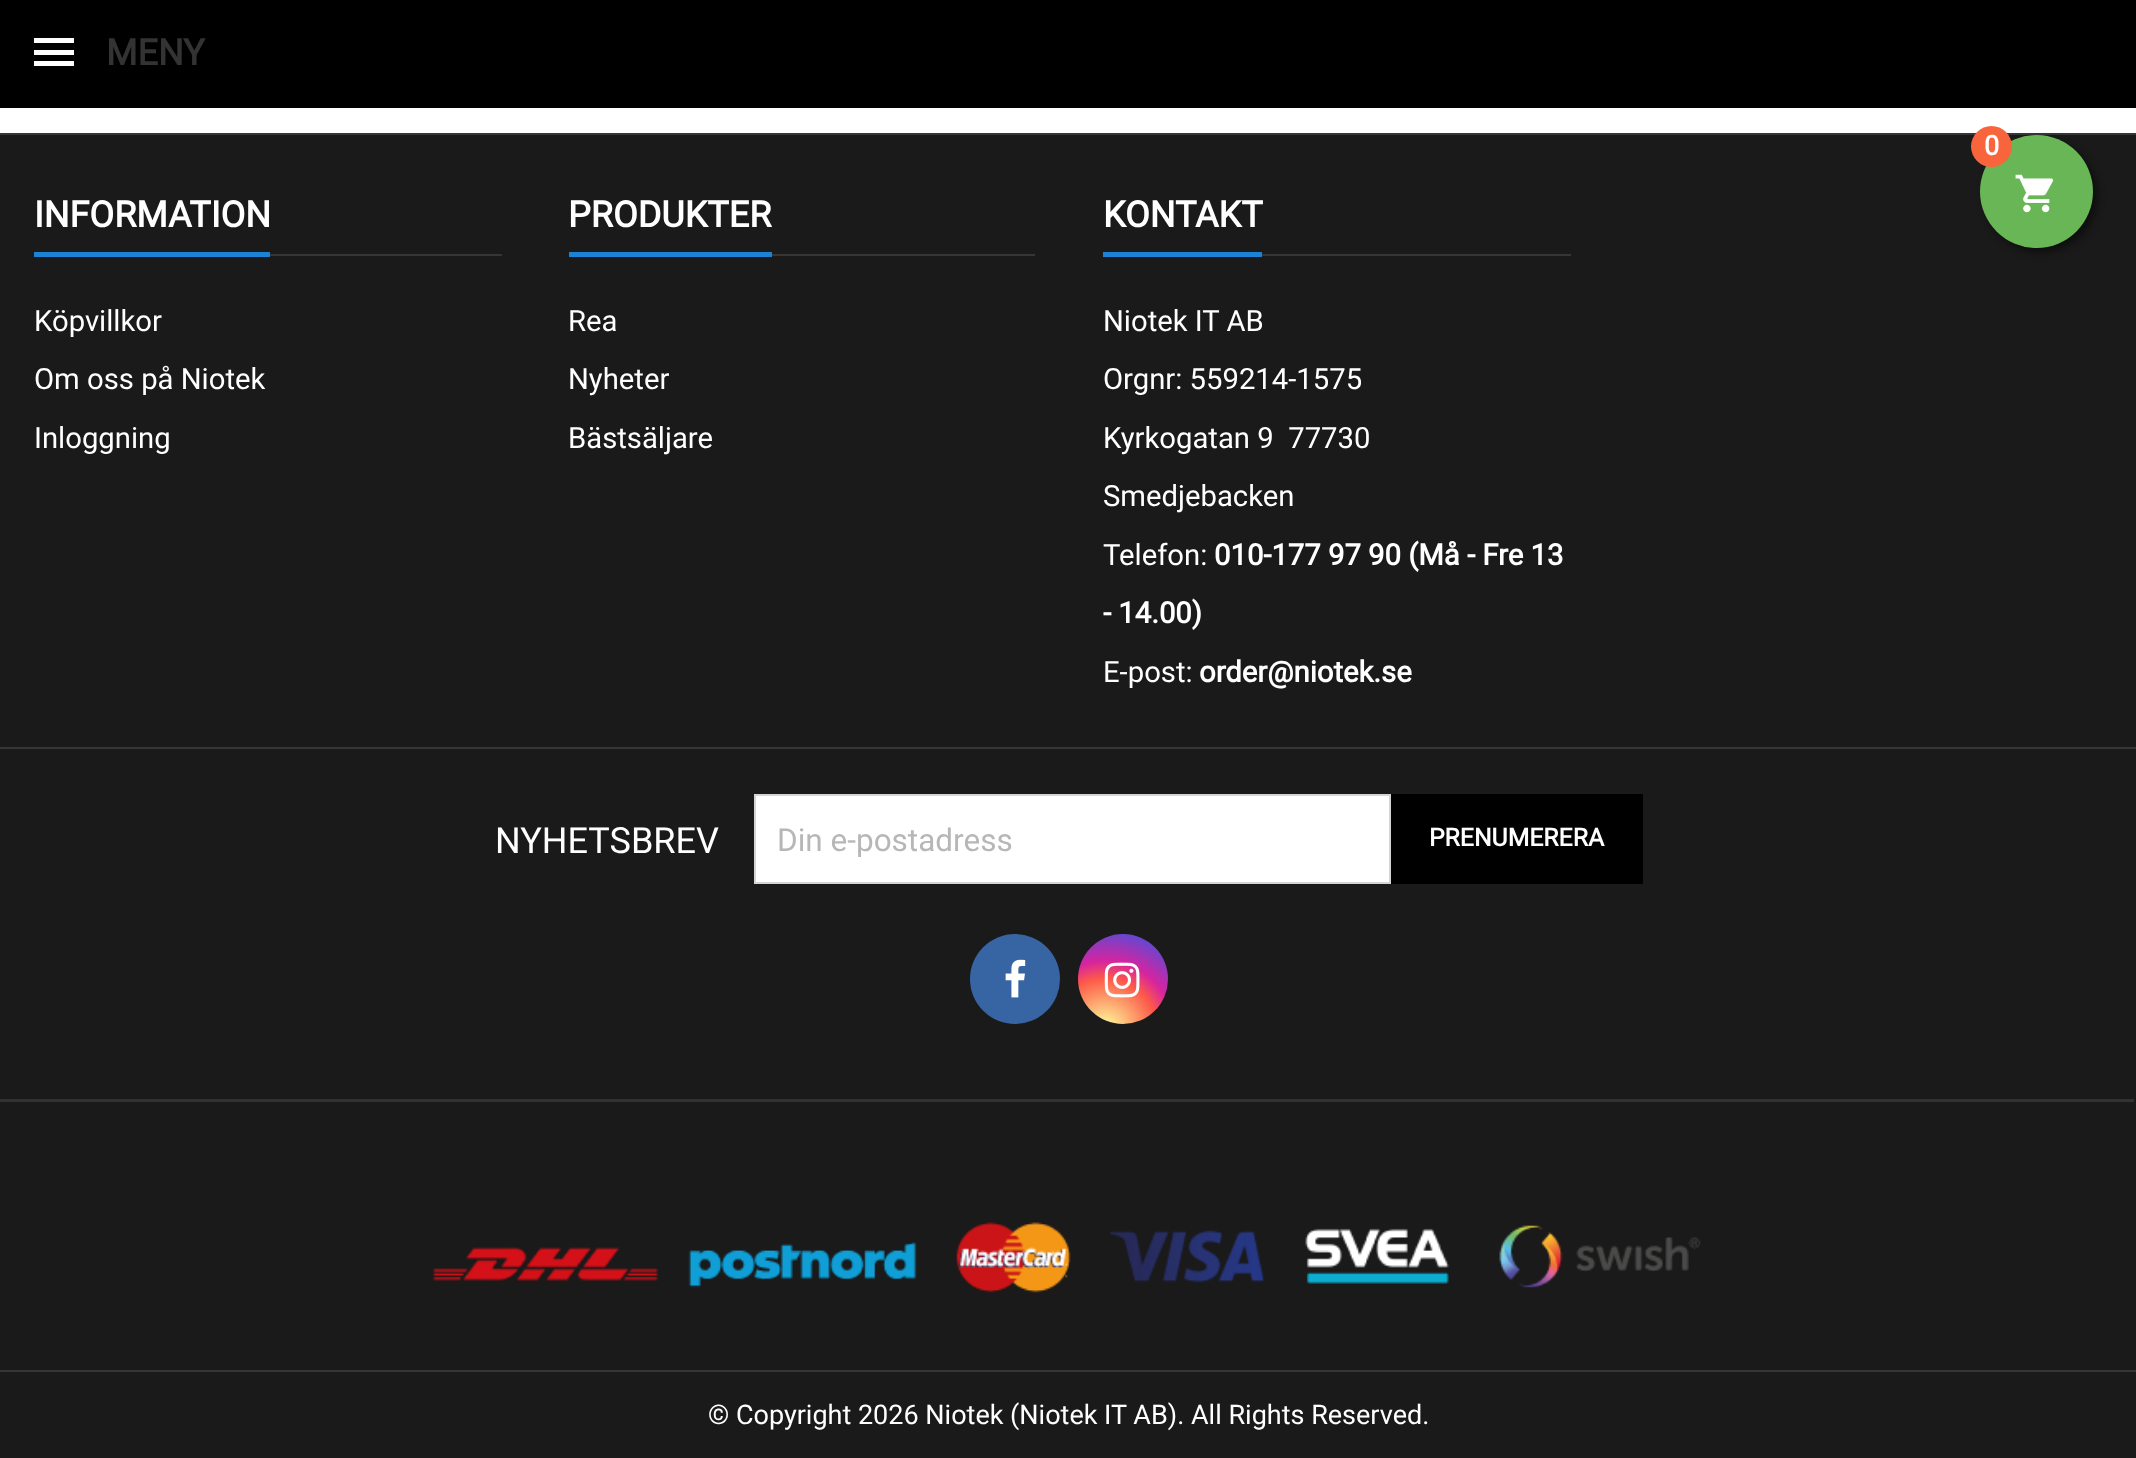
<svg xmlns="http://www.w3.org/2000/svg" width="2136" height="1458">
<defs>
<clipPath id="clip1"><rect x="779" y="821" width="587" height="36"/></clipPath>
<radialGradient id="g1" gradientUnits="userSpaceOnUse" cx="1105" cy="1030" r="115"><stop offset="0" stop-color="#fdf497"/><stop offset="0.05" stop-color="#fdf497"/><stop offset="0.45" stop-color="#fd5949"/><stop offset="0.6" stop-color="#d6249f"/><stop offset="1" stop-color="#285aeb"/></radialGradient>
</defs>
<rect width="100%" height="100%" fill="#fff"/>
<rect width="2136" height="108" fill="#000"/>
<rect x="34" y="38" width="40" height="5" fill="#fff"/>
<rect x="34" y="50" width="40" height="5" fill="#fff"/>
<rect x="34" y="61" width="40" height="5" fill="#fff"/>
<text x="106" y="65" style="font-family:Roboto;font-size:36px;font-weight:bold;fill:#333">MENY</text>
<rect y="135" width="2136" height="1323" fill="#1b1a1b"/>
<rect y="133" width="2136" height="2" fill="#363636"/>
<rect x="1985" y="140" width="112" height="112" rx="56" fill="#00000080" filter="blur(4.5px)"/>
<circle cx="2036.5" cy="191.5" r="56.5" fill="#69b657"/>
<circle cx="1991.5" cy="146.5" r="20.5" fill="#f8653d"/>
<text x="1984" y="155" style="font-family:Roboto;font-size:27px;font-weight:bold;fill:#fff">0</text>
<image x="2015" y="174" width="39" height="39" href="media/1.png"/>
<rect x="270" y="254" width="232" height="2" fill="#363636"/>
<rect x="34" y="252" width="236" height="5" fill="#1b82d6"/>
<text x="34" y="227" style="font-family:Roboto;font-size:36px;font-weight:bold;fill:#fff">INFORMATION</text>
<text x="34" y="331" style="font-family:Roboto;font-size:29.25px;fill:#fff">Köpvillkor</text>
<text x="34" y="389" style="font-family:Roboto;font-size:29.25px;fill:#fff">Om oss på Niotek</text>
<text x="34" y="448" style="font-family:Roboto;font-size:29.25px;fill:#fff">Inloggning</text>
<rect x="772" y="254" width="263" height="2" fill="#363636"/>
<rect x="569" y="252" width="203" height="5" fill="#1b82d6"/>
<text x="568" y="227" style="font-family:Roboto;font-size:36px;font-weight:bold;fill:#fff">PRODUKTER</text>
<text x="568" y="331" style="font-family:Roboto;font-size:29.25px;fill:#fff">Rea</text>
<text x="568" y="389" style="font-family:Roboto;font-size:29.25px;fill:#fff">Nyheter</text>
<text x="568" y="448" style="font-family:Roboto;font-size:29.25px;fill:#fff">Bästsäljare</text>
<rect x="1262" y="254" width="309" height="2" fill="#363636"/>
<rect x="1103" y="252" width="159" height="5" fill="#1b82d6"/>
<text x="1103" y="227" style="font-family:Roboto;font-size:36px;font-weight:bold;fill:#fff">KONTAKT</text>
<text x="1103" y="331" style="font-family:Roboto;font-size:29.25px;fill:#fff">Niotek IT AB</text>
<text x="1103" y="389" style="font-family:Roboto;font-size:29.25px;fill:#fff">Orgnr: 559214-1575</text>
<text x="1103" y="448" style="font-family:Roboto;font-size:29.25px;fill:#fff" xml:space="preserve">Kyrkogatan 9  77730</text>
<text x="1103" y="506" style="font-family:Roboto;font-size:29.25px;fill:#fff">Smedjebacken</text>
<text x="1103" y="565" style="font-family:Roboto;font-size:29.25px;fill:#fff">Telefon:</text>
<text x="1214" y="565" style="font-family:Roboto;font-size:29.25px;font-weight:bold;fill:#fff">010-177 97 90 (Må - Fre 13</text>
<text x="1103" y="623" style="font-family:Roboto;font-size:29.25px;font-weight:bold;fill:#fff">- 14.00)</text>
<text x="1103" y="682" style="font-family:Roboto;font-size:29.25px;fill:#fff">E-post:</text>
<text x="1199" y="682" style="font-family:Roboto;font-size:29.25px;font-weight:bold;fill:#fff">order@niotek.se</text>
<rect y="747" width="2136" height="2" fill="#363636"/>
<text x="495" y="853" style="font-family:Roboto;font-size:36px;fill:#fff">NYHETSBREV</text>
<rect x="755" y="795" width="635" height="88" fill="#fff" stroke="#d6d4d4" stroke-width="2"/>
<g clip-path="url(#clip1)">
<text x="777" y="851" style="font-family:Roboto;font-size:31.5px;fill:#b7b7b7">Din e-postadress</text>
</g>
<rect x="1391" y="794" width="252" height="90" fill="#000"/>
<text x="1429" y="846" style="font-family:Roboto;font-size:24.75px;font-weight:bold;fill:#fff">PRENUMERERA</text>
<circle cx="1015" cy="979" r="45" fill="#3765a3"/>
<image x="1005" y="959" width="21" height="39" href="media/2.png"/>
<circle cx="1123" cy="979" r="45" fill="url(#g1)"/>
<image x="1104" y="962" width="36" height="36" href="media/3.png"/>
<rect y="1099" width="2134" height="3" fill="#323232"/>
<image x="432" y="1222" width="1269" height="71" href="media/4.png"/>
<rect y="1370" width="2136" height="2" fill="#363636"/>
<text x="708" y="1424" style="font-family:Roboto;font-size:27px;fill:#fff">© Copyright 2026 Niotek (Niotek IT AB). All Rights Reserved.</text>
</svg>
